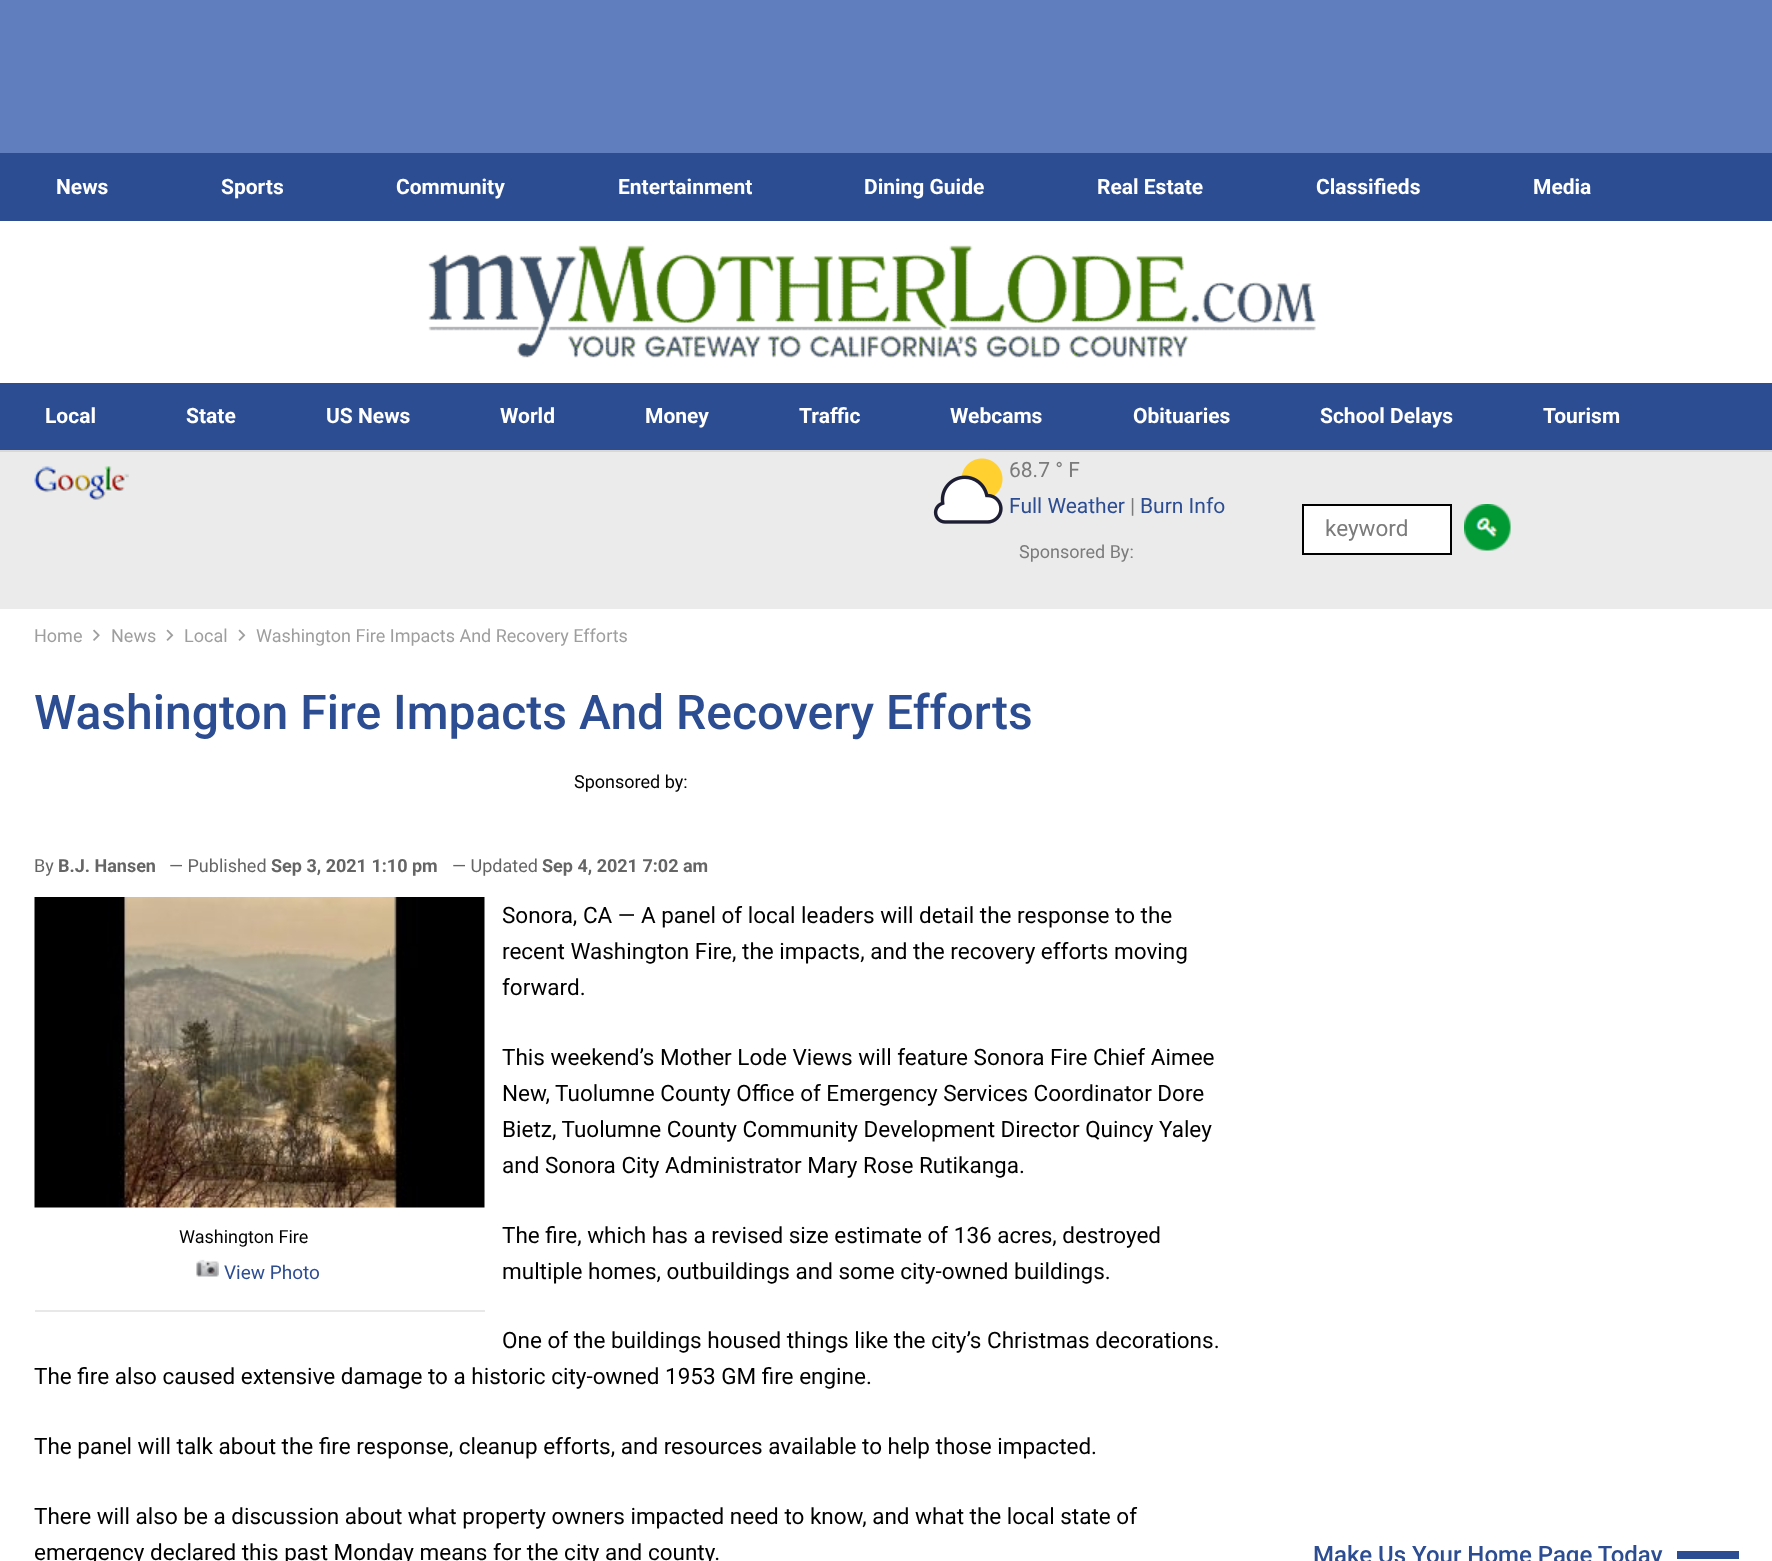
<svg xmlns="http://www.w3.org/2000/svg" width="1772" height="1561">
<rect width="100%" height="100%" fill="#607ebe"/>
<rect y="609" width="1772" height="952" fill="#fff"/>
<rect y="153" width="1772" height="68" fill="#2c4d92"/>
<text x="56" y="194" style="font-family:Roboto;font-size:21px;font-weight:bold;fill:#fff">News</text>
<text x="221" y="194" style="font-family:Roboto;font-size:21px;font-weight:bold;fill:#fff">Sports</text>
<text x="396" y="194" style="font-family:Roboto;font-size:21px;font-weight:bold;fill:#fff">Community</text>
<text x="618" y="194" style="font-family:Roboto;font-size:21px;font-weight:bold;fill:#fff">Entertainment</text>
<text x="864" y="194" style="font-family:Roboto;font-size:21px;font-weight:bold;fill:#fff">Dining Guide</text>
<text x="1097" y="194" style="font-family:Roboto;font-size:21px;font-weight:bold;fill:#fff">Real Estate</text>
<text x="1316" y="194" style="font-family:Roboto;font-size:21px;font-weight:bold;fill:#fff">Classifieds</text>
<text x="1533" y="194" style="font-family:Roboto;font-size:21px;font-weight:bold;fill:#fff">Media</text>
<rect y="221" width="1772" height="162" fill="#fff"/>
<image x="428" y="245" width="888" height="113" href="media/1.png"/>
<rect y="450" width="1772" height="2" fill="#d8d8d8"/>
<rect y="383" width="1772" height="67" fill="#2c4d92"/>
<text x="45" y="423" style="font-family:Roboto;font-size:21px;font-weight:bold;fill:#fff">Local</text>
<text x="186" y="423" style="font-family:Roboto;font-size:21px;font-weight:bold;fill:#fff">State</text>
<text x="326" y="423" style="font-family:Roboto;font-size:21px;font-weight:bold;fill:#fff">US News</text>
<text x="500" y="423" style="font-family:Roboto;font-size:21px;font-weight:bold;fill:#fff">World</text>
<text x="645" y="423" style="font-family:Roboto;font-size:21px;font-weight:bold;fill:#fff">Money</text>
<text x="799" y="423" style="font-family:Roboto;font-size:21px;font-weight:bold;fill:#fff">Traffic</text>
<text x="950" y="423" style="font-family:Roboto;font-size:21px;font-weight:bold;fill:#fff">Webcams</text>
<text x="1133" y="423" style="font-family:Roboto;font-size:21px;font-weight:bold;fill:#fff">Obituaries</text>
<text x="1320" y="423" style="font-family:Roboto;font-size:21px;font-weight:bold;fill:#fff">School Delays</text>
<text x="1543" y="423" style="font-family:Roboto;font-size:21px;font-weight:bold;fill:#fff">Tourism</text>
<rect y="452" width="1772" height="157" fill="#ebebeb"/>
<image x="34" y="466" width="95" height="34" href="media/2.png"/>
<image x="933" y="458" width="70" height="66" href="media/3.png"/>
<text x="1009" y="477" style="font-family:Roboto;font-size:21px;fill:#7b7b7b">68.7 ° F</text>
<text x="1009" y="513" style="font-family:Roboto;font-size:21px;fill:#2c4d92">Full Weather</text>
<text x="1130" y="513" style="font-family:Roboto;font-size:21px;fill:#7b7b7b">|</text>
<text x="1140" y="513" style="font-family:Roboto;font-size:21px;fill:#2c4d92">Burn Info</text>
<text x="1019" y="558" style="font-family:Roboto;font-size:18px;fill:#7b7b7b">Sponsored By:</text>
<rect x="1303" y="505" width="148" height="49" fill="#fff" stroke="#000" stroke-width="2"/>
<text x="1325" y="536" style="font-family:Roboto;font-size:22.5px;fill:#7b7b7b">keyword</text>
<image x="1464" y="504" width="47" height="47" href="media/4.png"/>
<text x="34" y="642" style="font-family:Roboto;font-size:18px;fill:#9e9e9e">Home</text>
<image x="93" y="629" width="7" height="12" href="media/5.png"/>
<text x="111" y="642" style="font-family:Roboto;font-size:18px;fill:#9e9e9e">News</text>
<image x="166" y="629" width="8" height="12" href="media/6.png"/>
<text x="184" y="642" style="font-family:Roboto;font-size:18px;fill:#9e9e9e">Local</text>
<image x="238" y="629" width="8" height="12" href="media/6.png"/>
<text x="256" y="642" style="font-family:Roboto;font-size:18px;fill:#9e9e9e">Washington Fire Impacts And Recovery Efforts</text>
<text x="34" y="729" style="font-family:Roboto;font-size:48px;font-weight:500;fill:#2c4d92">Washington Fire Impacts And Recovery Efforts</text>
<text x="574" y="788" style="font-family:Roboto;font-size:18px;fill:#000">Sponsored by:</text>
<text x="34" y="872" style="font-family:Roboto;font-size:18px;fill:#656565">By</text>
<text x="58" y="872" style="font-family:Roboto;font-size:18px;font-weight:bold;fill:#656565">B.J. Hansen</text>
<text x="169" y="872" style="font-family:Roboto;font-size:18px;fill:#656565">— Published</text>
<text x="271" y="872" style="font-family:Roboto;font-size:18px;font-weight:bold;fill:#656565">Sep 3, 2021 1:10 pm</text>
<text x="452" y="872" style="font-family:Roboto;font-size:18px;fill:#656565">— Updated</text>
<text x="542" y="872" style="font-family:Roboto;font-size:18px;font-weight:bold;fill:#656565">Sep 4, 2021 7:02 am</text>
<text x="502" y="923" style="font-family:Roboto;font-size:22.5px;fill:#000">Sonora, CA — A panel of local leaders will detail the response to the</text>
<text x="502" y="959" style="font-family:Roboto;font-size:22.5px;fill:#000">recent Washington Fire, the impacts, and the recovery efforts moving</text>
<text x="502" y="995" style="font-family:Roboto;font-size:22.5px;fill:#000">forward.</text>
<text x="502" y="1065" style="font-family:Roboto;font-size:22.5px;fill:#000">This weekend’s Mother Lode Views will feature Sonora Fire Chief Aimee</text>
<text x="502" y="1101" style="font-family:Roboto;font-size:22.5px;fill:#000">New, Tuolumne County Office of Emergency Services Coordinator Dore</text>
<text x="502" y="1137" style="font-family:Roboto;font-size:22.5px;fill:#000">Bietz, Tuolumne County Community Development Director Quincy Yaley</text>
<text x="502" y="1173" style="font-family:Roboto;font-size:22.5px;fill:#000">and Sonora City Administrator Mary Rose Rutikanga.</text>
<text x="502" y="1243" style="font-family:Roboto;font-size:22.5px;fill:#000">The fire, which has a revised size estimate of 136 acres, destroyed</text>
<text x="502" y="1279" style="font-family:Roboto;font-size:22.5px;fill:#000">multiple homes, outbuildings and some city-owned buildings.</text>
<text x="502" y="1348" style="font-family:Roboto;font-size:22.5px;fill:#000">One of the buildings housed things like the city’s Christmas decorations.</text>
<text x="34" y="1384" style="font-family:Roboto;font-size:22.5px;fill:#000">The fire also caused extensive damage to a historic city-owned 1953 GM fire engine.</text>
<text x="34" y="1454" style="font-family:Roboto;font-size:22.5px;fill:#000">The panel will talk about the fire response, cleanup efforts, and resources available to help those impacted.</text>
<text x="34" y="1524" style="font-family:Roboto;font-size:22.5px;fill:#000">There will also be a discussion about what property owners impacted need to know, and what the local state of</text>
<text x="34" y="1560" style="font-family:Roboto;font-size:22.5px;fill:#000">emergency declared this past Monday means for the city and county.</text>
<image x="34" y="897" width="451" height="311" href="media/7.png"/>
<text x="179" y="1243" style="font-family:Roboto;font-size:18px;fill:#000">Washington Fire</text>
<rect x="35" y="1310" width="450" height="2" fill="#e8e8e8"/>
<image x="196" y="1259" width="23" height="18" href="media/8.png"/>
<text x="224" y="1279" style="font-family:Roboto;font-size:19px;fill:#2c4d92">View Photo</text>
<text x="1313" y="1563" style="font-family:Roboto;font-size:24px;font-weight:500;fill:#2c4d92">Make Us Your Home Page Today</text>
<rect x="1677" y="1551" width="62" height="8" fill="#2c4d92"/>
</svg>
